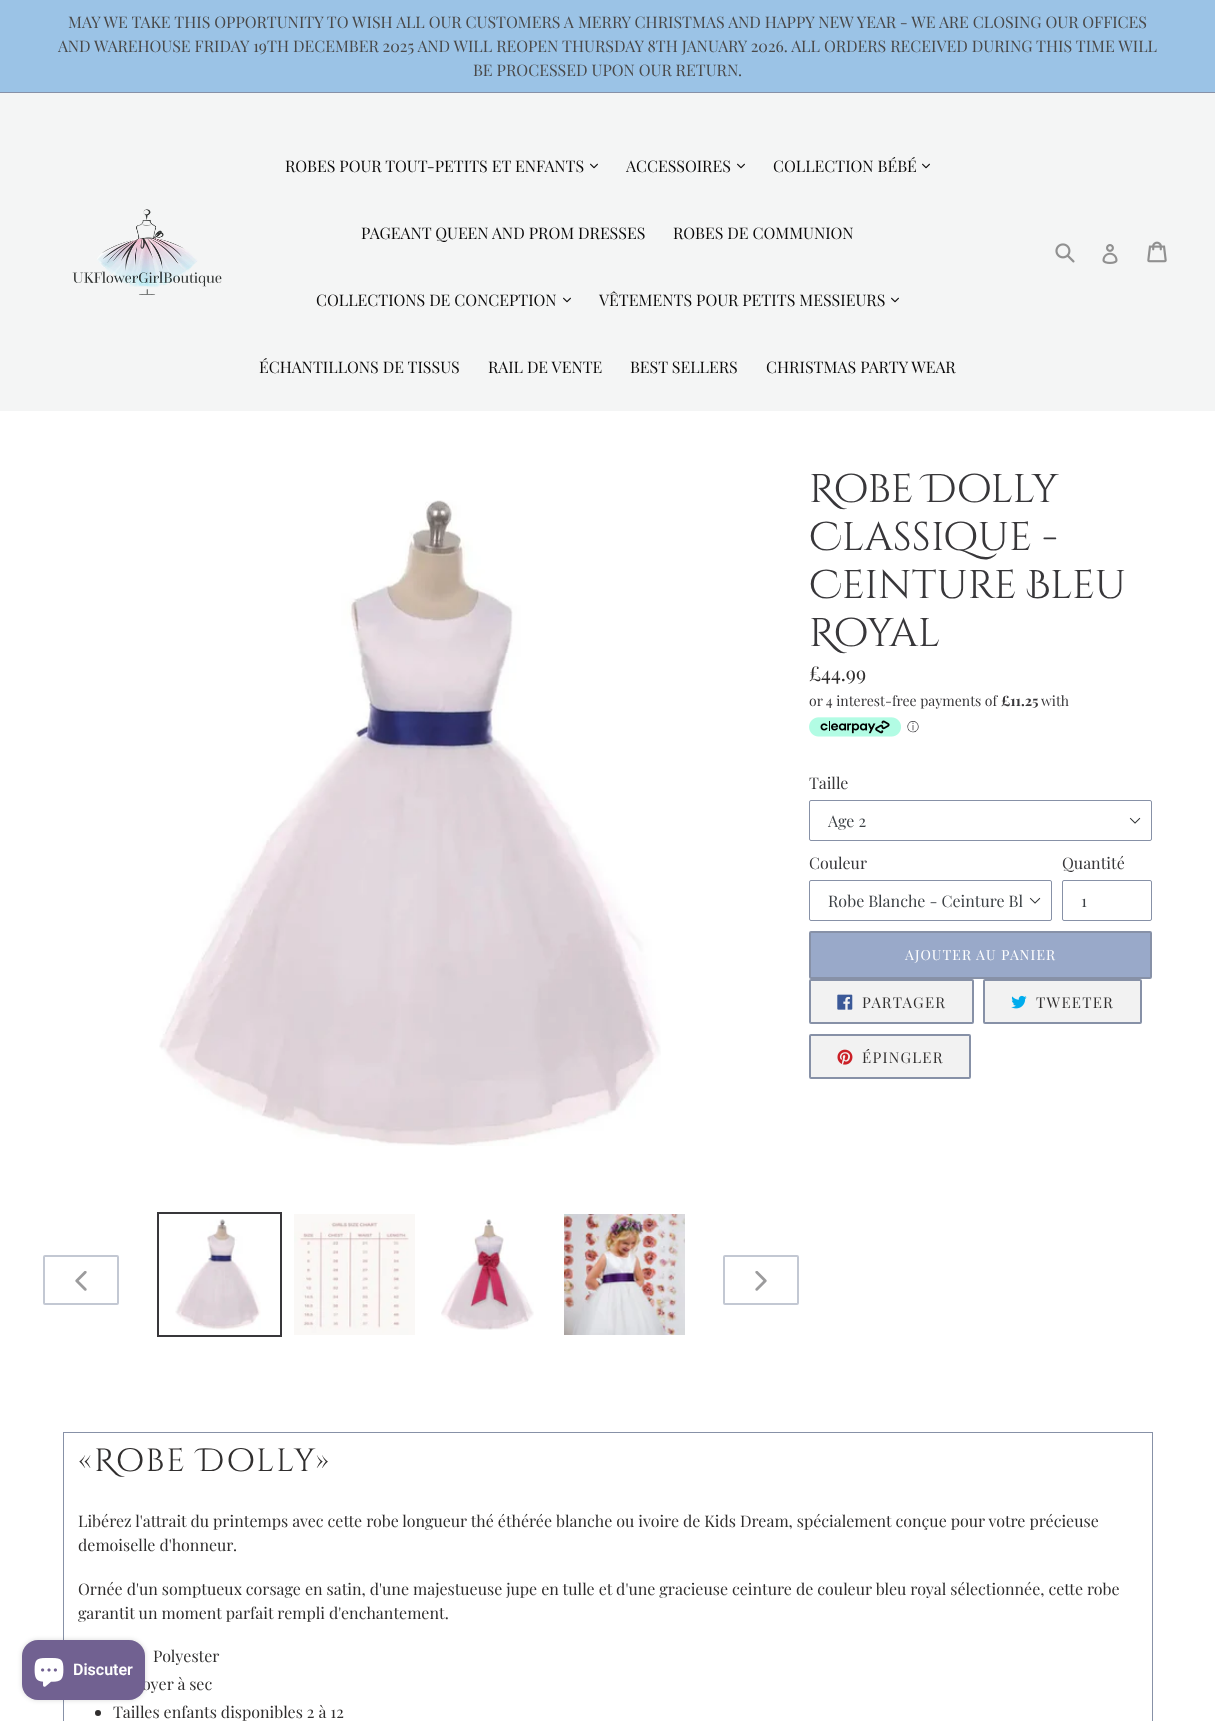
<svg xmlns="http://www.w3.org/2000/svg" width="1215" height="1721">
<rect width="100%" height="100%" fill="#fff"/>
<rect y="92" width="1215" height="1" fill="#8791a7"/>
<rect width="1215" height="92" fill="#9bc3e6"/>
<text x="68" y="28" style="font-family:Playfair Display;font-size:16px;fill:#494848">MAY WE TAKE THIS OPPORTUNITY TO WISH ALL OUR CUSTOMERS A MERRY CHRISTMAS AND HAPPY NEW YEAR - WE ARE CLOSING OUR OFFICES</text>
<text x="58" y="52" style="font-family:Playfair Display;font-size:16px;fill:#494848">AND WAREHOUSE FRIDAY 19TH DECEMBER 2025 AND WILL REOPEN THURSDAY 8TH JANUARY 2026. ALL ORDERS RECEIVED DURING THIS TIME WILL</text>
<text x="473" y="76" style="font-family:Playfair Display;font-size:16px;fill:#494848">BE PROCESSED UPON OUR RETURN.</text>
<rect y="93" width="1215" height="318" fill="#f4f5f5"/>
<image x="72" y="209" width="150" height="86" href="media/1.png"/>
<text x="285" y="172" style="font-family:Playfair Display;font-size:16px;fill:#0a0909">ROBES POUR TOUT-PETITS ET ENFANTS</text>
<image x="590" y="163" width="8" height="6" href="media/2.png"/>
<text x="626" y="172" style="font-family:Playfair Display;font-size:16px;fill:#0a0909">ACCESSOIRES</text>
<image x="737" y="163" width="8" height="6" href="media/2.png"/>
<text x="773" y="172" style="font-family:Playfair Display;font-size:16px;fill:#0a0909">COLLECTION BÉBÉ</text>
<image x="922" y="163" width="8" height="6" href="media/2.png"/>
<text x="361" y="239" style="font-family:Playfair Display;font-size:16px;fill:#0a0909">PAGEANT QUEEN AND PROM DRESSES</text>
<text x="673" y="239" style="font-family:Playfair Display;font-size:16px;fill:#0a0909">ROBES DE COMMUNION</text>
<text x="316" y="306" style="font-family:Playfair Display;font-size:16px;fill:#0a0909">COLLECTIONS DE CONCEPTION</text>
<image x="563" y="297" width="8" height="6" href="media/2.png"/>
<text x="599" y="306" style="font-family:Playfair Display;font-size:16px;fill:#0a0909">VÊTEMENTS POUR PETITS MESSIEURS</text>
<image x="891" y="297" width="8" height="6" href="media/2.png"/>
<text x="259" y="373" style="font-family:Playfair Display;font-size:16px;fill:#0a0909">ÉCHANTILLONS DE TISSUS</text>
<text x="488" y="373" style="font-family:Playfair Display;font-size:16px;fill:#0a0909">RAIL DE VENTE</text>
<text x="630" y="373" style="font-family:Playfair Display;font-size:16px;fill:#0a0909">BEST SELLERS</text>
<text x="766" y="373" style="font-family:Playfair Display;font-size:16px;fill:#0a0909">CHRISTMAS PARTY WEAR</text>
<image x="1055" y="243" width="20" height="20" href="media/3.png"/>
<image x="1102" y="244" width="16" height="20" href="media/4.png"/>
<image x="1147" y="241" width="20" height="22" href="media/5.png"/>
<image x="159" y="500" width="502" height="646" href="media/6.png"/>
<rect x="44" y="1256" width="74" height="48" rx="1" fill="none" stroke="#c3c8d3" stroke-width="2"/>
<image x="75" y="1271" width="12" height="20" href="media/7.png"/>
<rect x="158" y="1213" width="123" height="123" fill="none" stroke="#38373a" stroke-width="2"/>
<image x="175" y="1219" width="86" height="111" href="media/8.png"/>
<image x="294" y="1214" width="121" height="121" href="media/9.png"/>
<image x="441" y="1219" width="93" height="111" href="media/10.png"/>
<image x="564" y="1214" width="121" height="121" href="media/11.png"/>
<rect x="724" y="1256" width="74" height="48" rx="1" fill="none" stroke="#c3c8d3" stroke-width="2"/>
<image x="755" y="1271" width="12" height="20" href="media/12.png"/>
<text x="809" y="502" style="font-family:Cinzel Decorative;font-size:40px;fill:#38373a">Robe Dolly</text>
<text x="809" y="550" style="font-family:Cinzel Decorative;font-size:40px;fill:#38373a">Classique -</text>
<text x="809" y="598" style="font-family:Cinzel Decorative;font-size:40px;fill:#38373a">Ceinture Bleu</text>
<text x="809" y="646" style="font-family:Cinzel Decorative;font-size:40px;fill:#38373a">Royal</text>
<text x="809" y="681" style="font-family:Playfair Display;font-size:20px;fill:#302e2e">£44.99</text>
<text x="809" y="706" style="font-family:Playfair Display;font-size:14px;fill:#38373a">or 4 interest-free payments of</text>
<text x="1001" y="706" style="font-family:Playfair Display;font-size:14px;font-weight:bold;fill:#38373a">£11.25</text>
<text x="1041" y="706" style="font-family:Playfair Display;font-size:14px;fill:#38373a">with</text>
<image x="809" y="717" width="92" height="20" href="media/13.png"/>
<text x="907" y="731" style="font-family:WenQuanYi Zen Hei;font-size:12px;font-weight:500;fill:#38373a">ⓘ</text>
<text x="809" y="789" style="font-family:Playfair Display;font-size:16px;fill:#38373a">Taille</text>
<image x="1129" y="817" width="12" height="7" href="media/14.png"/>
<rect x="809.5" y="800.5" width="342" height="40" rx="1.5" fill="none" stroke="#8791a7"/>
<text x="828" y="827" style="font-family:Playfair Display;font-size:16px;fill:#3d4246">Age 2</text>
<text x="809" y="869" style="font-family:Playfair Display;font-size:16px;fill:#38373a">Couleur</text>
<image x="1029" y="897" width="12" height="7" href="media/14.png"/>
<rect x="809.5" y="880.5" width="242" height="40" rx="1.5" fill="none" stroke="#8791a7"/>
<text x="828" y="907" style="font-family:Playfair Display;font-size:16px;fill:#3d4246">Robe Blanche - Ceinture Bl</text>
<text x="1062" y="869" style="font-family:Playfair Display;font-size:16px;fill:#38373a">Quantité</text>
<rect x="1062.5" y="880.5" width="89" height="40" rx="1.5" fill="none" stroke="#8791a7"/>
<text x="1081" y="907" style="font-family:Playfair Display;font-size:16px;fill:#3d4246">1</text>
<rect x="810" y="932" width="341" height="46" rx="1" fill="#99a9c9" stroke="#8791a7" stroke-width="2"/>
<text x="905" y="960" style="font-family:Playfair Display;font-size:14px;letter-spacing:1.1px;fill:#fff">AJOUTER AU PANIER</text>
<rect x="810" y="980" width="163" height="43" rx="1" fill="#f2f2f2" stroke="#8791a7" stroke-width="2"/>
<image x="837" y="994" width="16" height="16" href="media/15.png"/>
<text x="862" y="1008" style="font-family:Playfair Display;font-size:15px;letter-spacing:1.25px;fill:#302e2e">PARTAGER</text>
<rect x="984" y="980" width="157" height="43" rx="1" fill="#f2f2f2" stroke="#8791a7" stroke-width="2"/>
<image x="1011" y="995" width="16" height="14" href="media/16.png"/>
<text x="1036" y="1008" style="font-family:Playfair Display;font-size:15px;letter-spacing:1.25px;fill:#302e2e">TWEETER</text>
<rect x="810" y="1035" width="160" height="43" rx="1" fill="#f2f2f2" stroke="#8791a7" stroke-width="2"/>
<image x="837" y="1049" width="16" height="16" href="media/17.png"/>
<text x="862" y="1063" style="font-family:Playfair Display;font-size:15px;letter-spacing:1.25px;fill:#302e2e">ÉPINGLER</text>
<rect x="63" y="1432" width="1090" height="1" fill="#8791a7"/>
<rect x="1152" y="1432" width="1" height="289" fill="#8791a7"/>
<rect x="63" y="1432" width="1" height="289" fill="#8791a7"/>
<text x="78" y="1471" style="font-family:Cinzel Decorative;font-size:32.25px;letter-spacing:2.25px;fill:#302e2e">«Robe Dolly»</text>
<text x="78" y="1527" style="font-family:Playfair Display;font-size:16px;fill:#302e2e">Libérez l'attrait du printemps avec cette robe longueur thé éthérée blanche ou ivoire de Kids Dream, spécialement conçue pour votre précieuse</text>
<text x="78" y="1551" style="font-family:Playfair Display;font-size:16px;fill:#302e2e">demoiselle d'honneur.</text>
<text x="78" y="1595" style="font-family:Playfair Display;font-size:16px;fill:#302e2e">Ornée d'un somptueux corsage en satin, d'une majestueuse jupe en tulle et d'une gracieuse ceinture de couleur bleu royal sélectionnée, cette robe</text>
<text x="78" y="1619" style="font-family:Playfair Display;font-size:16px;fill:#302e2e">garantit un moment parfait rempli d'enchantement.</text>
<text x="153" y="1662" style="font-family:Playfair Display;font-size:16px;fill:#302e2e">Polyester</text>
<text x="142" y="1690" style="font-family:Playfair Display;font-size:16px;fill:#302e2e">oyer à sec</text>
<circle cx="98" cy="1713" r="3" fill="#302e2e"/>
<text x="113" y="1718" style="font-family:Playfair Display;font-size:16px;fill:#302e2e">Tailles enfants disponibles 2 à 12</text>
<rect x="22" y="1640" width="123" height="60" rx="16" fill="#00000026" filter="blur(2.5px)"/>
<rect x="22" y="1640" width="123" height="60" rx="16" fill="#716191"/>
<image x="34" y="1658" width="30" height="29" href="media/18.png"/>
<text x="73" y="1675" style="font-family:Roboto;font-size:16px;font-weight:600;fill:#fff">Discuter</text>
</svg>
